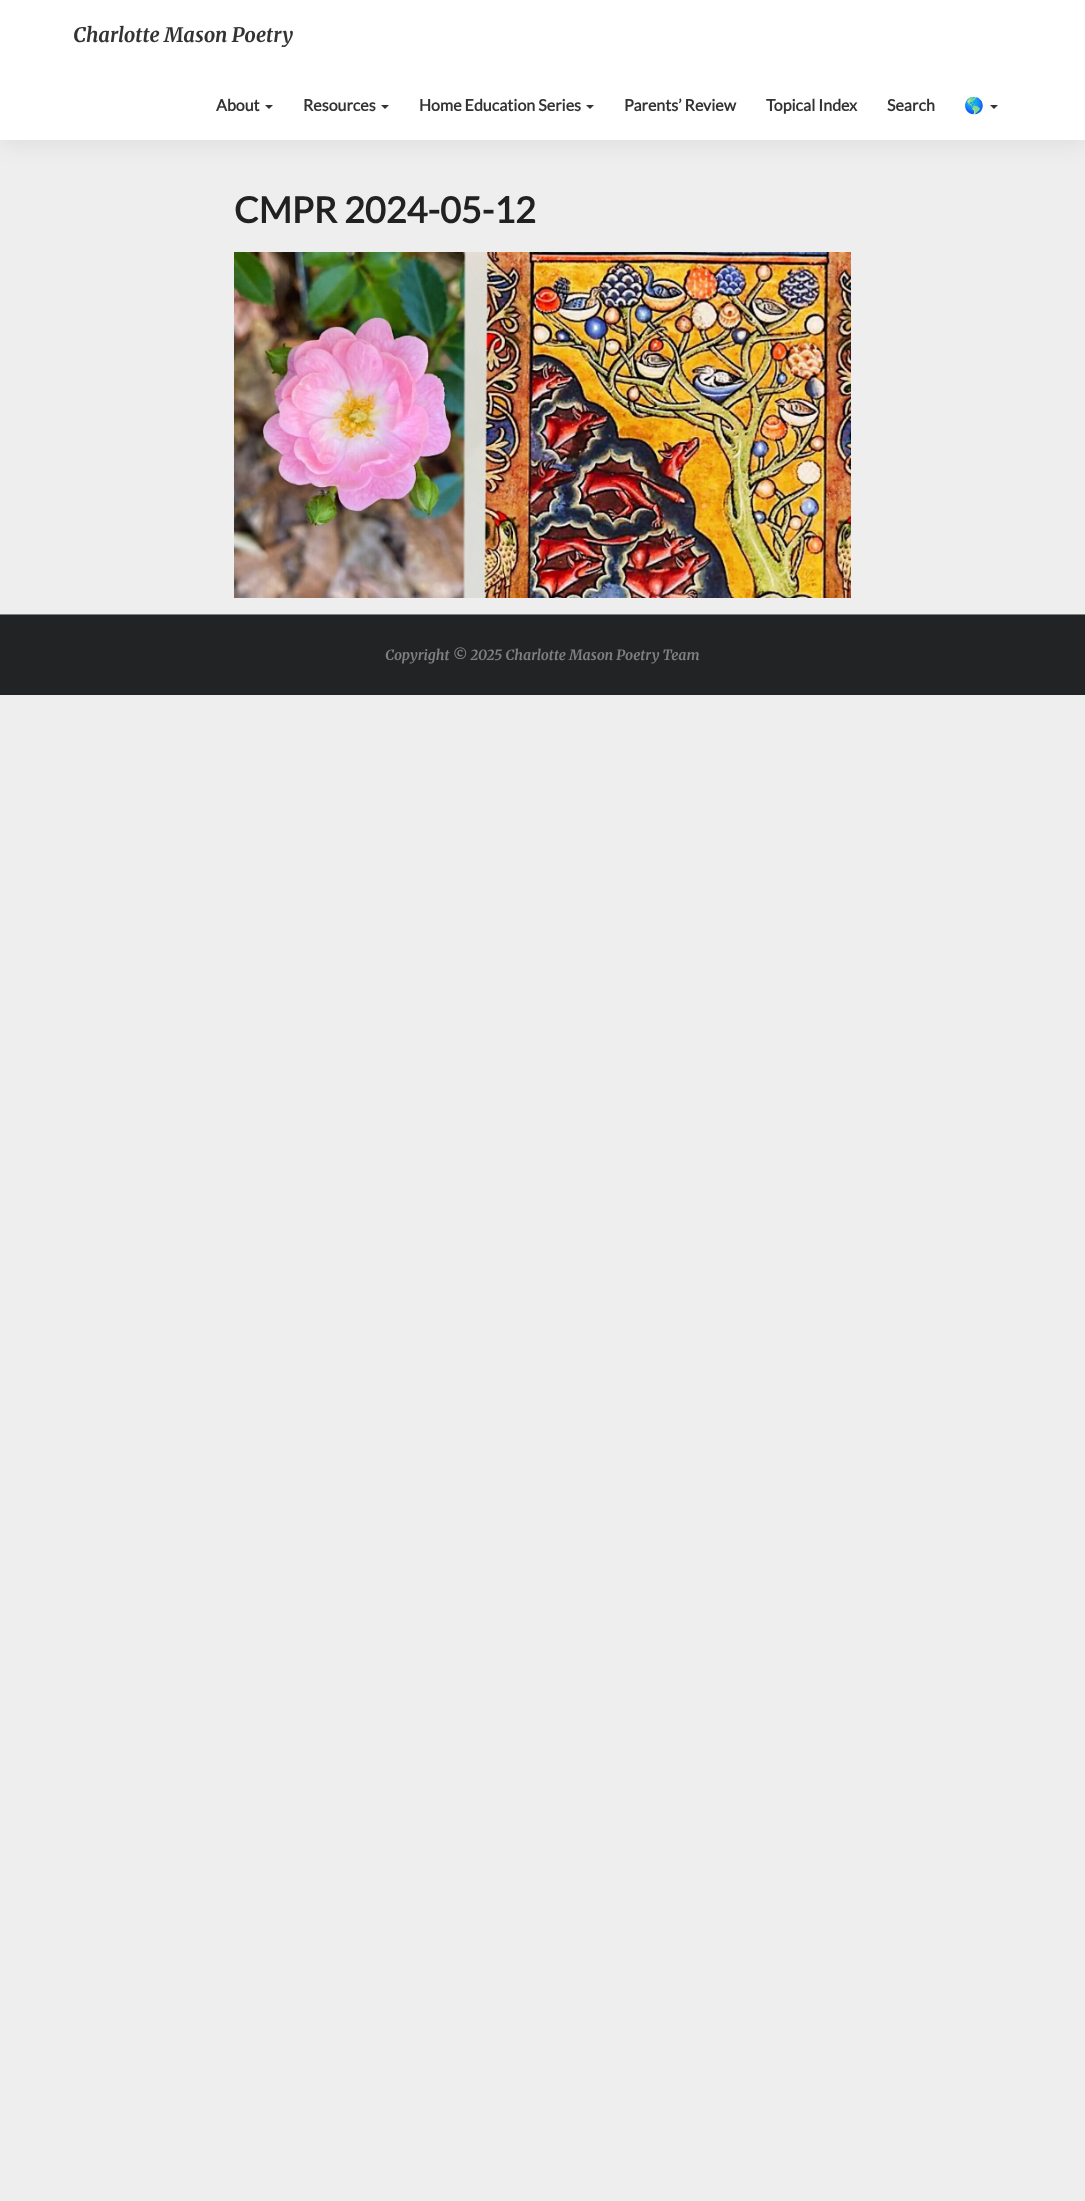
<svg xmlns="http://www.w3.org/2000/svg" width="1085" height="2201">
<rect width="100%" height="100%" fill="#eee"/>
<rect y="2" width="1085" height="140" fill="#00000014" filter="blur(12.5px)"/>
<rect width="1085" height="140" fill="#fff"/>
<text x="73" y="42" style="font-family:Merriweather;font-size:20px;font-weight:300;font-style:italic;fill:#333">Charlotte Mason Poetry</text>
<text x="216" y="111" style="font-family:Lato;font-size:16px;font-weight:bold;fill:#333">About</text>
<path d="M265 105h8l-4 4z" fill="#333"/>
<text x="303" y="111" style="font-family:Lato;font-size:16px;font-weight:bold;fill:#333">Resources</text>
<path d="M381 105h8l-4 4z" fill="#333"/>
<text x="419" y="111" style="font-family:Lato;font-size:16px;font-weight:bold;fill:#333">Home Education Series</text>
<path d="M586 105h8l-4 4z" fill="#333"/>
<text x="624" y="111" style="font-family:Lato;font-size:16px;font-weight:bold;fill:#333">Parents’ Review</text>
<text x="766" y="111" style="font-family:Lato;font-size:16px;font-weight:bold;fill:#333">Topical Index</text>
<text x="887" y="111" style="font-family:Lato;font-size:16px;font-weight:bold;fill:#333">Search</text>
<text x="964" y="111" style="font-family:Noto Color Emoji;font-size:16px;font-weight:bold;fill:#333">🌎</text>
<path d="M990 105h8l-4 4z" fill="#333"/>
<text x="234" y="223" style="font-family:Lato;font-size:36px;font-weight:bold;fill:#212121">CMPR 2024-05-12</text>
<image x="234" y="252" width="617" height="346" href="media/1.png"/>
<rect y="615" width="1085" height="80" fill="#212324"/>
<rect y="614" width="1085" height="1" fill="#7f7f7f"/>
<text x="385" y="660" style="font-family:Merriweather;font-size:14px;font-weight:300;font-style:italic;fill:#7f7f7f">Copyright © 2025 Charlotte Mason Poetry Team</text>
</svg>
